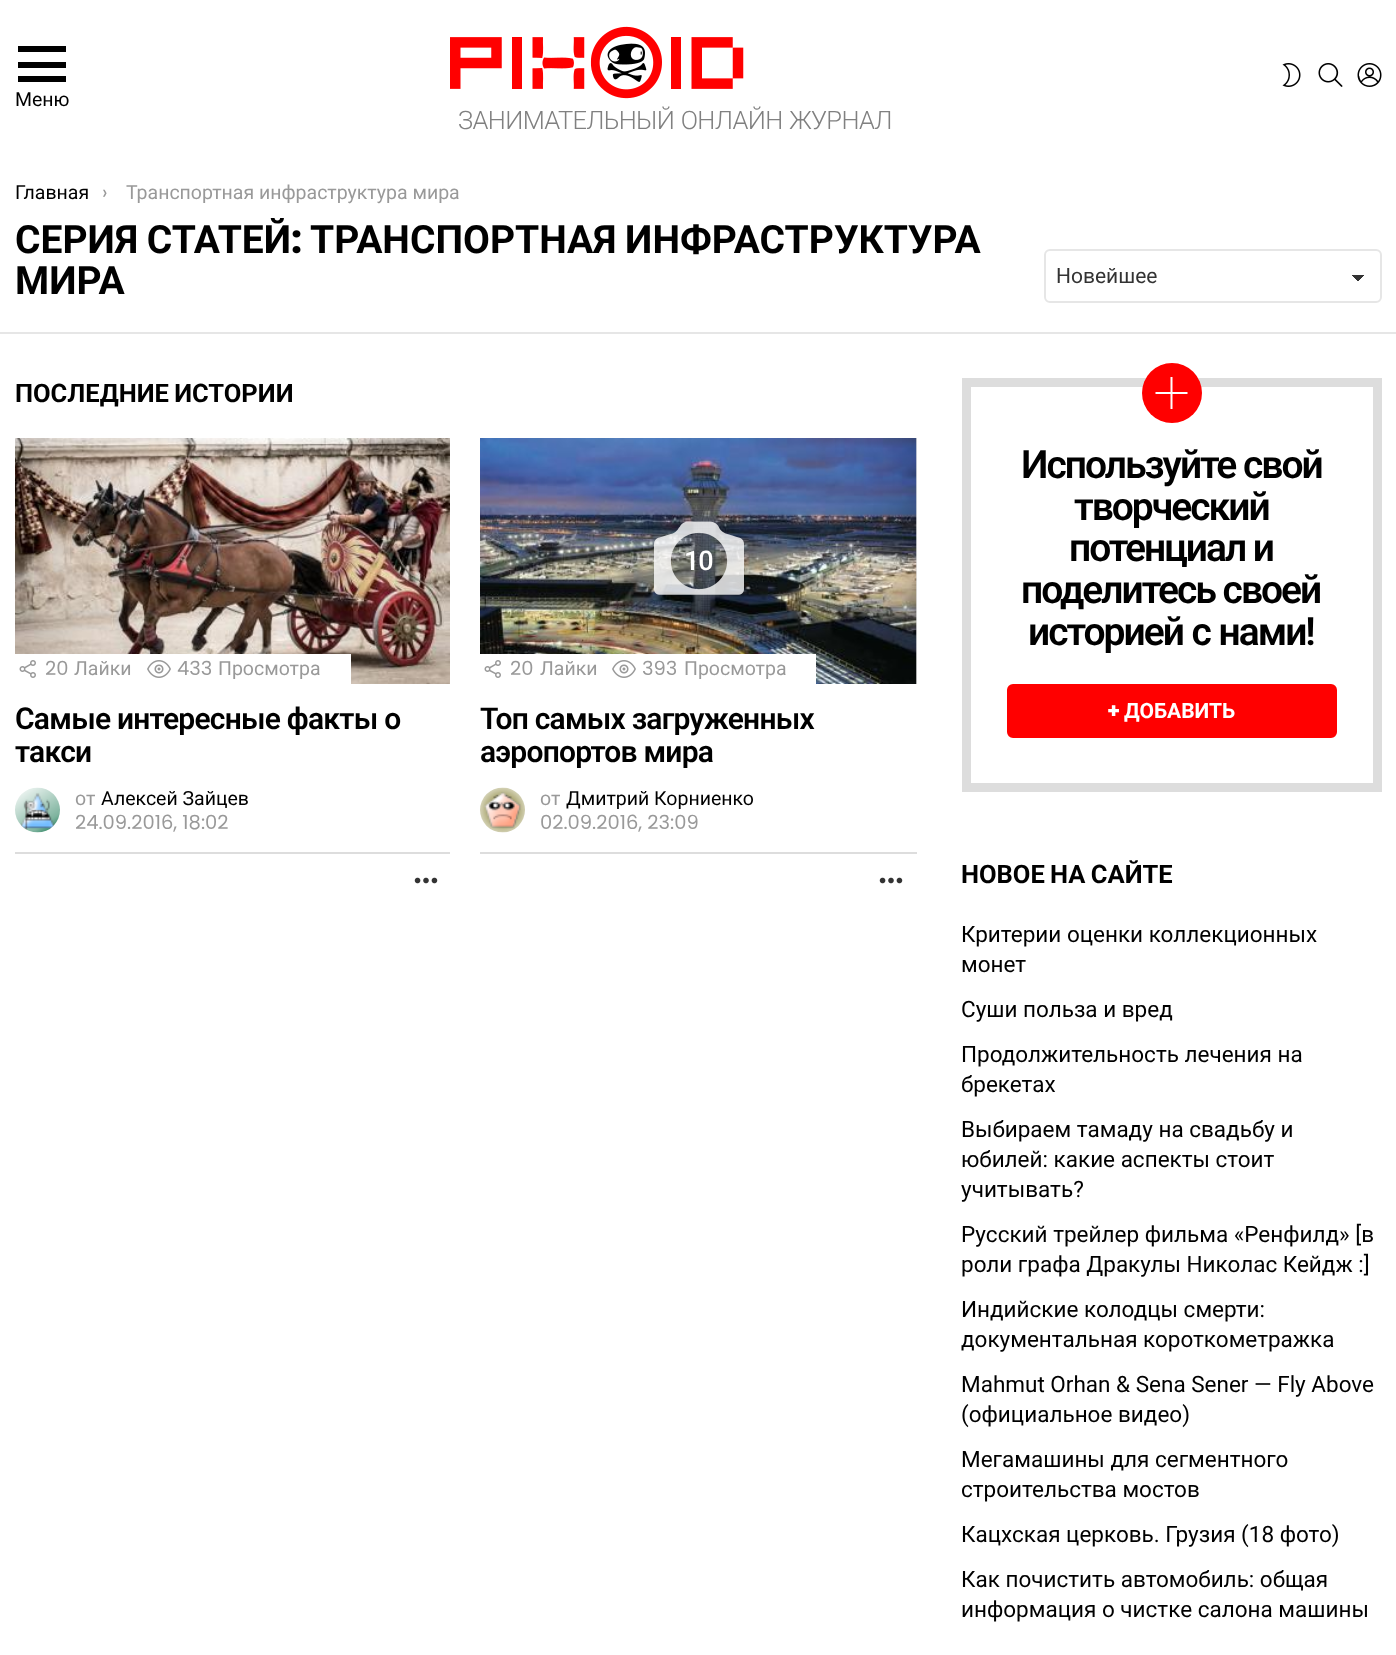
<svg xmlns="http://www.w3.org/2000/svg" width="1396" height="1655">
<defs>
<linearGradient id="g1" gradientUnits="userSpaceOnUse" x1="1358" y1="274" x2="1365" y2="281"><stop offset="0.5" stop-color="#333"/><stop offset="0.5" stop-color="#fff"/></linearGradient>
<linearGradient id="g2" gradientUnits="userSpaceOnUse" x1="1350" y1="281" x2="1357" y2="274"><stop offset="0.5" stop-color="#fff"/><stop offset="0.5" stop-color="#333"/></linearGradient>
</defs>
<rect width="100%" height="100%" fill="#fff"/>
<image x="1282" y="63" width="19" height="24" href="media/1.png"/>
<image x="1318" y="63" width="25" height="24" href="media/2.png"/>
<image x="1357" y="63" width="25" height="24" href="media/3.png"/>
<path d="M18 46h48v6h-48zm0 16h48v6h-48zm0 14h48v6h-48z" fill="#000"/>
<text x="15" y="106" style="font-family:Roboto;font-size:19.5px;fill:#000">Меню</text>
<image x="450" y="26" width="294" height="73" href="media/4.png"/>
<text x="458" y="129" word-spacing="1" style="font-family:Roboto;font-size:25.5px;font-weight:300;letter-spacing:-0.65px;fill:#808080">ЗАНИМАТЕЛЬНЫЙ ОНЛАЙН ЖУРНАЛ</text>
<text x="15" y="199" style="font-family:Roboto;font-size:19.5px;fill:#000">Главная</text>
<text x="102" y="199" style="font-family:Poppins;font-size:19.5px;fill:#999">›</text>
<text x="126" y="199" style="font-family:Roboto;font-size:19.5px;fill:#999">Транспортная инфраструктура мира</text>
<text x="15" y="253" word-spacing="-1" style="font-family:Roboto;font-size:39px;font-weight:bold;fill:#000">СЕРИЯ СТАТЕЙ</text>
<text x="291" y="253" style="font-family:Poppins;font-size:39px;font-weight:bold;fill:#000">:</text>
<text x="310" y="253" word-spacing="-1" style="font-family:Roboto;font-size:39px;font-weight:bold;fill:#000">ТРАНСПОРТНАЯ ИНФРАСТРУКТУРА</text>
<text x="15" y="294" style="font-family:Roboto;font-size:39px;font-weight:bold;fill:#000">МИРА</text>
<rect x="1358" y="275" width="7" height="6" fill="url(#g1)"/>
<rect x="1350" y="275" width="8" height="6" fill="url(#g2)"/>
<rect x="1045" y="250" width="336" height="52" rx="5" fill="none" stroke="#e6e6e6" stroke-width="2"/>
<text x="1056" y="283" style="font-family:Roboto;font-size:21px;fill:#333">Новейшее</text>
<rect y="332" width="1396" height="2" fill="#e6e6e6"/>
<text x="15" y="402" word-spacing="-1" style="font-family:Roboto;font-size:25.5px;font-weight:bold;fill:#000">ПОСЛЕДНИЕ ИСТОРИИ</text>
<image x="15" y="438" width="435" height="246" href="media/5.png"/>
<rect x="15" y="654" width="336" height="30" fill="#fff"/>
<image x="19" y="660" width="17" height="18" href="media/6.png"/>
<text x="45" y="675" style="font-family:Poppins;font-size:19.5px;fill:#999">20</text>
<text x="74" y="675" style="font-family:Roboto;font-size:19.5px;fill:#999">Лайки</text>
<image x="147" y="660" width="24" height="18" href="media/7.png"/>
<text x="177" y="675" style="font-family:Poppins;font-size:19.5px;fill:#999">433</text>
<text x="218" y="675" style="font-family:Roboto;font-size:19.5px;fill:#999">Просмотра</text>
<text x="15" y="729" style="font-family:Roboto;font-size:30px;font-weight:600;letter-spacing:-0.75px;fill:#000">Самые интересные факты о</text>
<text x="15" y="762" style="font-family:Roboto;font-size:30px;font-weight:600;letter-spacing:-0.75px;fill:#000">такси</text>
<text x="75" y="805" style="font-family:Roboto;font-size:19.5px;fill:#999">от</text>
<image x="15" y="787" width="45" height="46" href="media/8.png"/>
<text x="101" y="805" style="font-family:Roboto;font-size:19.5px;fill:#000">Алексей Зайцев</text>
<text x="75" y="829" style="font-family:Poppins;font-size:19.5px;fill:#999">24.09.2016, 18:02</text>
<rect x="15" y="852" width="435" height="2" fill="#ddd"/>
<image x="414" y="877" width="24" height="7" href="media/9.png"/>
<rect x="916" y="438" width="1" height="246" fill="#e6e6e6"/>
<image x="480" y="438" width="437" height="246" href="media/10.png"/>
<image x="654" y="521" width="90" height="74" href="media/11.png"/>
<text x="684" y="570" style="font-family:Roboto;font-size:27px;font-weight:500;letter-spacing:-1px;fill:#fff">10</text>
<rect x="480" y="654" width="336" height="30" fill="#fff"/>
<image x="484" y="660" width="17" height="18" href="media/6.png"/>
<text x="510" y="675" style="font-family:Poppins;font-size:19.5px;fill:#999">20</text>
<text x="540" y="675" style="font-family:Roboto;font-size:19.5px;fill:#999">Лайки</text>
<image x="612" y="660" width="24" height="18" href="media/7.png"/>
<text x="642" y="675" style="font-family:Poppins;font-size:19.5px;fill:#999">393</text>
<text x="684" y="675" style="font-family:Roboto;font-size:19.5px;fill:#999">Просмотра</text>
<text x="480" y="729" style="font-family:Roboto;font-size:30px;font-weight:600;letter-spacing:-0.75px;fill:#000">Топ самых загруженных</text>
<text x="480" y="762" style="font-family:Roboto;font-size:30px;font-weight:600;letter-spacing:-0.75px;fill:#000">аэропортов мира</text>
<text x="540" y="805" style="font-family:Roboto;font-size:19.5px;fill:#999">от</text>
<image x="480" y="787" width="45" height="46" href="media/12.png"/>
<text x="566" y="805" style="font-family:Roboto;font-size:19.5px;fill:#000">Дмитрий Корниенко</text>
<text x="540" y="829" style="font-family:Poppins;font-size:19.5px;fill:#999">02.09.2016, 23:09</text>
<rect x="480" y="852" width="437" height="2" fill="#ddd"/>
<image x="879" y="877" width="24" height="7" href="media/9.png"/>
<rect x="966.5" y="382.5" width="411" height="405" fill="none" stroke="#ddd" stroke-width="9"/>
<circle cx="1172" cy="393" r="30" fill="#f00"/>
<path d="M1187.5 394h-15v15h-2v-15h-15v-2h15v-15h2v15h15z" fill="#fff"/>
<text x="1021" y="478" style="font-family:Roboto;font-size:39px;font-weight:600;letter-spacing:-2px;fill:#000">Используйте свой</text>
<text x="1074" y="520" style="font-family:Roboto;font-size:39px;font-weight:600;letter-spacing:-2px;fill:#000">творческий</text>
<text x="1069" y="561" style="font-family:Roboto;font-size:39px;font-weight:600;letter-spacing:-2px;fill:#000">потенциал и</text>
<text x="1021" y="603" style="font-family:Roboto;font-size:39px;font-weight:600;letter-spacing:-2px;fill:#000">поделитесь своей</text>
<text x="1028" y="645" word-spacing="1" style="font-family:Roboto;font-size:39px;font-weight:600;letter-spacing:-2px;fill:#000">историей с нами!</text>
<rect x="1008.5" y="685.5" width="327" height="51" rx="4.5" fill="#f00" stroke="#f00" stroke-width="3"/>
<text x="1107" y="718" style="font-family:Poppins;font-size:21px;font-weight:bold;fill:#fff">+</text>
<text x="1124" y="718" style="font-family:Roboto;font-size:21px;font-weight:bold;fill:#fff">ДОБАВИТЬ</text>
<text x="961" y="883" word-spacing="-1" style="font-family:Roboto;font-size:25.5px;font-weight:bold;fill:#000">НОВОЕ НА САЙТЕ</text>
<text x="961" y="942" style="font-family:Roboto;font-size:22.5px;fill:#000">Критерии оценки коллекционных</text>
<text x="961" y="972" style="font-family:Roboto;font-size:22.5px;fill:#000">монет</text>
<text x="961" y="1017" style="font-family:Roboto;font-size:22.5px;fill:#000">Суши польза и вред</text>
<text x="961" y="1062" style="font-family:Roboto;font-size:22.5px;fill:#000">Продолжительность лечения на</text>
<text x="961" y="1092" style="font-family:Roboto;font-size:22.5px;fill:#000">брекетах</text>
<text x="961" y="1137" style="font-family:Roboto;font-size:22.5px;fill:#000">Выбираем тамаду на свадьбу и</text>
<text x="961" y="1167" style="font-family:Roboto;font-size:22.5px;fill:#000">юбилей: какие аспекты стоит</text>
<text x="961" y="1197" style="font-family:Roboto;font-size:22.5px;fill:#000">учитывать?</text>
<text x="961" y="1242" style="font-family:Roboto;font-size:22.5px;fill:#000">Русский трейлер фильма «Ренфилд» [в</text>
<text x="961" y="1272" style="font-family:Roboto;font-size:22.5px;fill:#000">роли графа Дракулы Николас Кейдж :]</text>
<text x="961" y="1317" style="font-family:Roboto;font-size:22.5px;fill:#000">Индийские колодцы смерти:</text>
<text x="961" y="1347" style="font-family:Roboto;font-size:22.5px;fill:#000">документальная короткометражка</text>
<text x="961" y="1392" style="font-family:Roboto;font-size:22.5px;fill:#000">Mahmut Orhan &amp; Sena Sener — Fly Above</text>
<text x="961" y="1422" style="font-family:Roboto;font-size:22.5px;fill:#000">(официальное видео)</text>
<text x="961" y="1467" style="font-family:Roboto;font-size:22.5px;fill:#000">Мегамашины для сегментного</text>
<text x="961" y="1497" style="font-family:Roboto;font-size:22.5px;fill:#000">строительства мостов</text>
<text x="961" y="1542" style="font-family:Roboto;font-size:22.5px;fill:#000">Кацхская церковь. Грузия (18 фото)</text>
<text x="961" y="1587" style="font-family:Roboto;font-size:22.5px;fill:#000">Как почистить автомобиль: общая</text>
<text x="961" y="1617" style="font-family:Roboto;font-size:22.5px;fill:#000">информация о чистке салона машины</text>
</svg>
